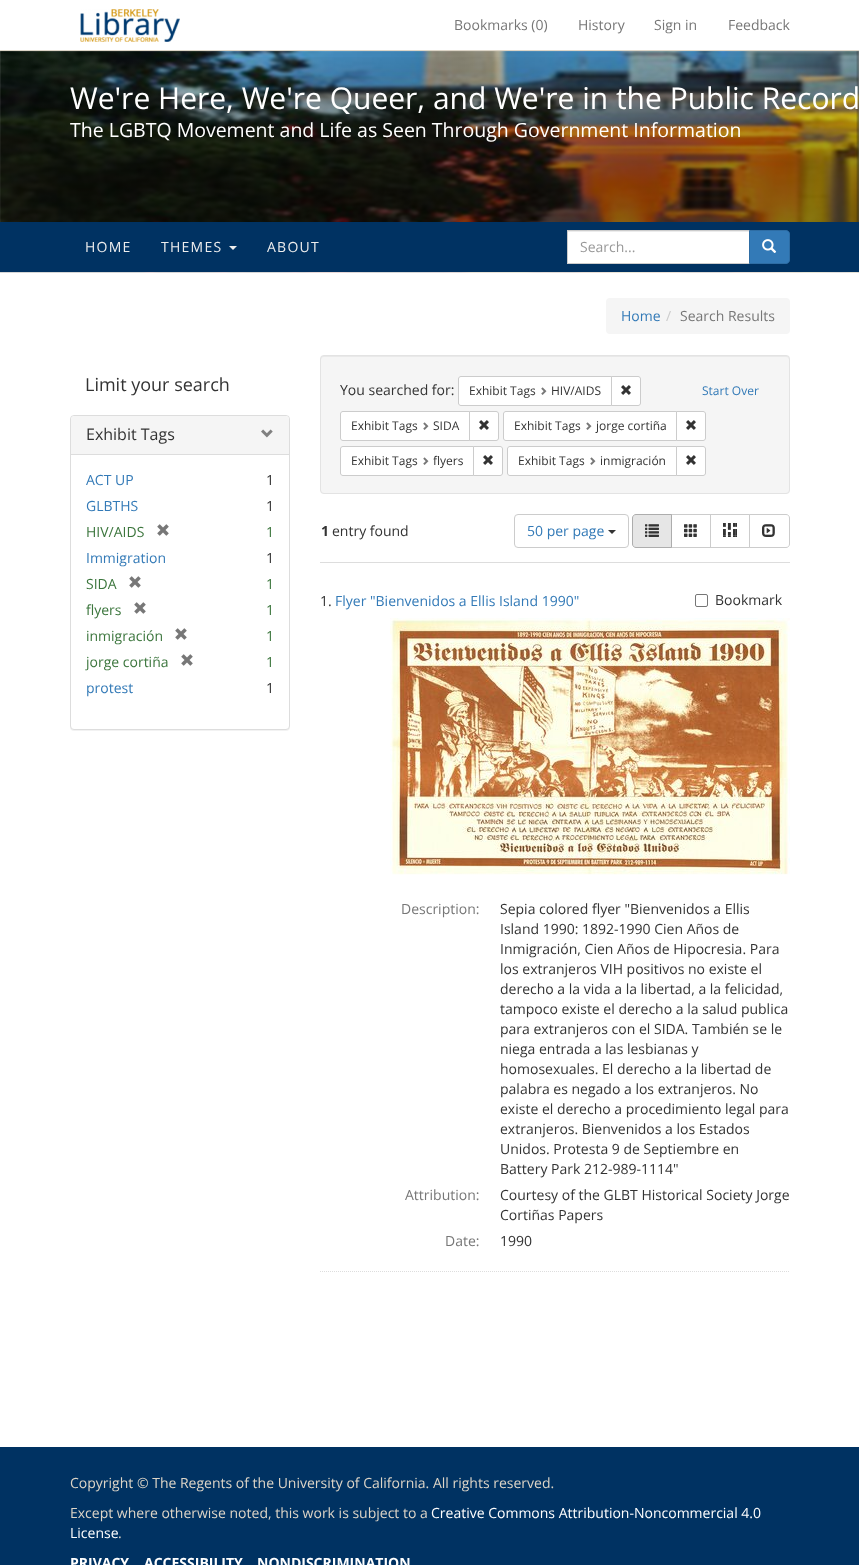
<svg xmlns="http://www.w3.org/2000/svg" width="859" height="1565">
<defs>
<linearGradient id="g1" gradientUnits="userSpaceOnUse" x1="430" y1="51" x2="430" y2="272"><stop offset="0" stop-color="#000" stop-opacity="0"/><stop offset="0.5" stop-color="#000" stop-opacity="0.4"/><stop offset="1" stop-color="#000" stop-opacity="0.5"/></linearGradient>
</defs>
<rect width="100%" height="100%" fill="#fff"/>
<rect y="272" width="859" height="1" fill="#e7e7e7"/>
<image x="0" y="51" width="859" height="222" href="media/2.png"/>
<rect x="858" y="50" width="1" height="221" fill="#000" filter="blur(1px)"/>
<rect x="856" y="48" width="3" height="2" fill="#fff"/>
<rect y="50" width="859" height="1" fill="#ddd5c7"/>
<image x="80" y="9" width="100" height="33" href="media/1.png"/>
<text x="454" y="30" style="font-family:Open Sans;font-size:14px;fill:#777">Bookmarks (0)</text>
<text x="578" y="30" style="font-family:Open Sans;font-size:14px;fill:#777">History</text>
<text x="654" y="30" style="font-family:Open Sans;font-size:14px;fill:#777">Sign in</text>
<text x="728" y="30" style="font-family:Open Sans;font-size:14px;fill:#777">Feedback</text>
<rect y="57" width="859" height="165" fill="url(#g1)"/>
<text x="70" y="109" style="font-family:Open Sans;font-size:30px;fill:#fff">We're Here, We're Queer, and We're in the Public Record</text>
<text x="70" y="137" style="font-family:Open Sans;font-size:19.5px;fill:#fff">The LGBTQ Movement and Life as Seen Through Government Information</text>
<rect y="222" width="859" height="50" fill="#003262"/>
<text x="85" y="252" style="font-family:Open Sans;font-size:14px;letter-spacing:1.25px;fill:#eee">HOME</text>
<text x="161" y="252" style="font-family:Open Sans;font-size:14px;letter-spacing:1.25px;fill:#eee">THEMES</text>
<path d="M229 246h8l-4 4z" fill="#eee"/>
<text x="267" y="252" style="font-family:Open Sans;font-size:14px;letter-spacing:1.25px;fill:#eee">ABOUT</text>
<rect x="568" y="232" width="181" height="31" fill="#fff"/>
<rect x="568" y="231" width="181" height="1" fill="#ececec"/>
<rect x="567.5" y="230.5" width="182" height="33" fill="none" stroke="#ccc"/>
<text x="580" y="252" style="font-family:Open Sans;font-size:14px;fill:#999">Search...</text>
<path d="M749.5 230.5h36.5c2 0 3.5 1.5 3.5 3.5v26c0 2-1.5 3.5-3.5 3.5h-36.5z" fill="#337ab7" stroke="#2e6da4"/>
<image x="762" y="239" width="15" height="14" href="media/3.png"/>
<rect x="606" y="298" width="184" height="36" rx="4" fill="#f5f5f5"/>
<text x="621" y="321" style="font-family:Open Sans;font-size:14px;fill:#337ab7">Home</text>
<text x="666" y="321" style="font-family:Open Sans;font-size:14px;fill:#ccc">/</text>
<text x="680" y="321" style="font-family:Open Sans;font-size:14px;fill:#777">Search Results</text>
<text x="85" y="391" style="font-family:Open Sans;font-size:18px;fill:#333">Limit your search</text>
<rect x="70" y="416" width="220" height="315" rx="4" fill="#0000000d" filter="blur(0.5px)"/>
<rect x="70.5" y="415.5" width="219" height="314" rx="3.5" fill="#fff" stroke="#ddd"/>
<path d="M74 416h212c1.5 0 3 1.5 3 3v35h-218v-35c0-1.5 1.5-3 3-3z" fill="#f5f5f5"/>
<text x="86" y="440" style="font-family:Open Sans;font-size:16px;fill:#333">Exhibit Tags</text>
<image x="261" y="429" width="12" height="9" href="media/4.png"/>
<rect x="71" y="454" width="218" height="1" fill="#ddd"/>
<text x="86" y="485" style="font-family:Open Sans;font-size:14px;fill:#337ab7">ACT UP</text>
<text x="266" y="485" style="font-family:Open Sans;font-size:14px;fill:#333">1</text>
<text x="86" y="511" style="font-family:Open Sans;font-size:14px;fill:#337ab7">GLBTHS</text>
<text x="266" y="511" style="font-family:Open Sans;font-size:14px;fill:#333">1</text>
<text x="86" y="537" style="font-family:Open Sans;font-size:14px;fill:#3c763d">HIV/AIDS</text>
<image x="157" y="524" width="12" height="12" href="media/5.png"/>
<text x="266" y="537" style="font-family:Open Sans;font-size:14px;fill:#3c763d">1</text>
<text x="86" y="563" style="font-family:Open Sans;font-size:14px;fill:#337ab7">Immigration</text>
<text x="266" y="563" style="font-family:Open Sans;font-size:14px;fill:#333">1</text>
<text x="86" y="589" style="font-family:Open Sans;font-size:14px;fill:#3c763d">SIDA</text>
<image x="129" y="576" width="12" height="12" href="media/5.png"/>
<text x="266" y="589" style="font-family:Open Sans;font-size:14px;fill:#3c763d">1</text>
<text x="86" y="615" style="font-family:Open Sans;font-size:14px;fill:#3c763d">flyers</text>
<image x="134" y="602" width="12" height="12" href="media/5.png"/>
<text x="266" y="615" style="font-family:Open Sans;font-size:14px;fill:#3c763d">1</text>
<text x="86" y="641" style="font-family:Open Sans;font-size:14px;fill:#3c763d">inmigración</text>
<image x="175" y="628" width="12" height="12" href="media/5.png"/>
<text x="266" y="641" style="font-family:Open Sans;font-size:14px;fill:#3c763d">1</text>
<text x="86" y="667" style="font-family:Open Sans;font-size:14px;fill:#3c763d">jorge cortiña</text>
<image x="181" y="654" width="12" height="12" href="media/5.png"/>
<text x="266" y="667" style="font-family:Open Sans;font-size:14px;fill:#3c763d">1</text>
<text x="86" y="693" style="font-family:Open Sans;font-size:14px;fill:#337ab7">protest</text>
<text x="266" y="693" style="font-family:Open Sans;font-size:14px;fill:#333">1</text>
<rect x="320" y="355" width="470" height="139" rx="4" fill="#f5f5f5"/>
<path d="M324 357h462c2 0 3 1 3 3v-1c0-2-1-3-3-3h-462c-2 0-3 1-3 3v1c0-2 1-3 3-3z" fill="#e9e9e9"/>
<rect x="320.5" y="355.5" width="469" height="138" rx="3.5" fill="none" stroke="#e3e3e3"/>
<text x="340" y="395" style="font-family:Open Sans;font-size:14px;fill:#333">You searched for:</text>
<path d="M461 376.5h150.5v29h-150.5c-1.5 0-2.5-1-2.5-2.5v-24c0-1.5 1-2.5 2.5-2.5z" fill="#fff" stroke="#ccc"/>
<text x="469" y="395" style="font-family:Open Sans;font-size:12px;fill:#333">Exhibit Tags</text>
<image x="541" y="387" width="6" height="8" href="media/6.png"/>
<text x="551" y="395" style="font-family:Open Sans;font-size:12px;fill:#333">HIV/AIDS</text>
<path d="M611.5 376.5h26.5c1.5 0 2.5 1 2.5 2.5v24c0 1.5-1 2.5-2.5 2.5h-26.5z" fill="#fff" stroke="#ccc"/>
<image x="621" y="385" width="10" height="10" href="media/7.png"/>
<text x="702" y="395" style="font-family:Open Sans;font-size:12px;fill:#337ab7">Start Over</text>
<path d="M343 411.5h126.5v29h-126.5c-1.5 0-2.5-1-2.5-2.5v-24c0-1.5 1-2.5 2.5-2.5z" fill="#fff" stroke="#ccc"/>
<text x="351" y="430" style="font-family:Open Sans;font-size:12px;fill:#333">Exhibit Tags</text>
<image x="423" y="422" width="6" height="8" href="media/6.png"/>
<text x="433" y="430" style="font-family:Open Sans;font-size:12px;fill:#333">SIDA</text>
<path d="M469.5 411.5h26.5c1.5 0 2.5 1 2.5 2.5v24c0 1.5-1 2.5-2.5 2.5h-26.5z" fill="#fff" stroke="#ccc"/>
<image x="479" y="420" width="10" height="10" href="media/7.png"/>
<path d="M506 411.5h170.5v29h-170.5c-1.5 0-2.5-1-2.5-2.5v-24c0-1.5 1-2.5 2.5-2.5z" fill="#fff" stroke="#ccc"/>
<text x="514" y="430" style="font-family:Open Sans;font-size:12px;fill:#333">Exhibit Tags</text>
<image x="586" y="422" width="6" height="8" href="media/6.png"/>
<text x="596" y="430" style="font-family:Open Sans;font-size:12px;fill:#333">jorge cortiña</text>
<path d="M676.5 411.5h26.5c1.5 0 2.5 1 2.5 2.5v24c0 1.5-1 2.5-2.5 2.5h-26.5z" fill="#fff" stroke="#ccc"/>
<image x="686" y="420" width="10" height="10" href="media/7.png"/>
<path d="M343 446.5h130.5v29h-130.5c-1.5 0-2.5-1-2.5-2.5v-24c0-1.5 1-2.5 2.5-2.5z" fill="#fff" stroke="#ccc"/>
<text x="351" y="465" style="font-family:Open Sans;font-size:12px;fill:#333">Exhibit Tags</text>
<image x="423" y="457" width="6" height="8" href="media/6.png"/>
<text x="433" y="465" style="font-family:Open Sans;font-size:12px;fill:#333">flyers</text>
<path d="M473.5 446.5h26.5c1.5 0 2.5 1 2.5 2.5v24c0 1.5-1 2.5-2.5 2.5h-26.5z" fill="#fff" stroke="#ccc"/>
<image x="483" y="455" width="10" height="10" href="media/7.png"/>
<path d="M510 446.5h166.5v29h-166.5c-1.5 0-2.5-1-2.5-2.5v-24c0-1.5 1-2.5 2.5-2.5z" fill="#fff" stroke="#ccc"/>
<text x="518" y="465" style="font-family:Open Sans;font-size:12px;fill:#333">Exhibit Tags</text>
<image x="590" y="457" width="6" height="8" href="media/6.png"/>
<text x="600" y="465" style="font-family:Open Sans;font-size:12px;fill:#333">inmigración</text>
<path d="M676.5 446.5h26.5c1.5 0 2.5 1 2.5 2.5v24c0 1.5-1 2.5-2.5 2.5h-26.5z" fill="#fff" stroke="#ccc"/>
<image x="686" y="455" width="10" height="10" href="media/7.png"/>
<rect x="320" y="562" width="470" height="1" fill="#ddd"/>
<text x="321" y="536" style="font-family:Open Sans;font-size:14px;font-weight:bold;fill:#333">1</text>
<text x="332" y="536" style="font-family:Open Sans;font-size:14px;fill:#333">entry found</text>
<rect x="514.5" y="514.5" width="114" height="33" rx="3.5" fill="none" stroke="#ccc"/>
<text x="527" y="536" style="font-family:Open Sans;font-size:14px;fill:#337ab7">50 per page</text>
<path d="M608 530h8l-4 4z" fill="#333"/>
<rect x="671.5" y="514.5" width="39" height="33" fill="none" stroke="#ccc"/>
<path d="M636 514.5h35.5v33h-35.5c-2 0-3.5-1.5-3.5-3.5v-26c0-2 1.5-3.5 3.5-3.5z" fill="#e6e6e6" stroke="#adadad"/>
<image x="645" y="524" width="14" height="13" href="media/8.png"/>
<image x="684" y="524" width="13" height="13" href="media/9.png"/>
<rect x="710.5" y="514.5" width="39" height="33" fill="none" stroke="#ccc"/>
<image x="723" y="523" width="14" height="14" href="media/10.png"/>
<path d="M749.5 514.5h36.5c2 0 3.5 1.5 3.5 3.5v26c0 2-1.5 3.5-3.5 3.5h-36.5z" fill="#fff" stroke="#ccc"/>
<image x="762" y="524" width="13" height="13" href="media/11.png"/>
<path d="M320 1271.5h470" fill="none" stroke="#ddd" stroke-dasharray="1 1"/>
<text x="320" y="606" style="font-family:Open Sans;font-size:14px;fill:#333">1.</text>
<text x="335" y="606" style="font-family:Open Sans;font-size:14px;fill:#337ab7">Flyer "Bienvenidos a Ellis Island 1990"</text>
<rect x="695.5" y="594.5" width="12" height="12" rx="1.5" fill="none" stroke="#767676"/>
<text x="715" y="605" style="font-family:Open Sans;font-size:14px;fill:#333">Bookmark</text>
<image x="390" y="618" width="400" height="257" href="media/12.png"/>
<text x="401" y="914" style="font-family:Open Sans;font-size:14px;fill:#777">Description:</text>
<text x="500" y="914" style="font-family:Open Sans;font-size:14px;fill:#333">Sepia colored flyer "Bienvenidos a Ellis</text>
<text x="500" y="934" style="font-family:Open Sans;font-size:14px;fill:#333">Island 1990: 1892-1990 Cien Años de</text>
<text x="500" y="954" style="font-family:Open Sans;font-size:14px;fill:#333">Inmigración, Cien Años de Hipocresia. Para</text>
<text x="500" y="974" style="font-family:Open Sans;font-size:14px;fill:#333">los extranjeros VIH positivos no existe el</text>
<text x="500" y="994" style="font-family:Open Sans;font-size:14px;fill:#333">derecho a la vida a la libertad, a la felicidad,</text>
<text x="500" y="1014" style="font-family:Open Sans;font-size:14px;fill:#333">tampoco existe el derecho a la salud publica</text>
<text x="500" y="1034" style="font-family:Open Sans;font-size:14px;fill:#333">para extranjeros con el SIDA. También se le</text>
<text x="500" y="1054" style="font-family:Open Sans;font-size:14px;fill:#333">niega entrada a las lesbianas y</text>
<text x="500" y="1074" style="font-family:Open Sans;font-size:14px;fill:#333">homosexuales. El derecho a la libertad de</text>
<text x="500" y="1094" style="font-family:Open Sans;font-size:14px;fill:#333">palabra es negado a los extranjeros. No</text>
<text x="500" y="1114" style="font-family:Open Sans;font-size:14px;fill:#333">existe el derecho a procedimiento legal para</text>
<text x="500" y="1134" style="font-family:Open Sans;font-size:14px;fill:#333">extranjeros. Bienvenidos a los Estados</text>
<text x="500" y="1154" style="font-family:Open Sans;font-size:14px;fill:#333">Unidos. Protesta 9 de Septiembre en</text>
<text x="500" y="1174" style="font-family:Open Sans;font-size:14px;fill:#333">Battery Park 212-989-1114"</text>
<text x="405" y="1200" style="font-family:Open Sans;font-size:14px;fill:#777">Attribution:</text>
<text x="500" y="1200" style="font-family:Open Sans;font-size:14px;fill:#333">Courtesy of the GLBT Historical Society Jorge</text>
<text x="500" y="1220" style="font-family:Open Sans;font-size:14px;fill:#333">Cortiñas Papers</text>
<text x="445" y="1246" style="font-family:Open Sans;font-size:14px;fill:#777">Date:</text>
<text x="500" y="1246" style="font-family:Open Sans;font-size:14px;fill:#333">1990</text>
<rect y="1447" width="859" height="118" fill="#003262"/>
<text x="70" y="1488" style="font-family:Open Sans;font-size:14px;fill:#ddd5c7">Copyright © The Regents of the University of California. All rights reserved.</text>
<text x="70" y="1518" style="font-family:Open Sans;font-size:14px;fill:#ddd5c7">Except where otherwise noted, this work is subject to a</text>
<text x="431" y="1518" style="font-family:Open Sans;font-size:14px;fill:#fff">Creative Commons Attribution-Noncommercial 4.0</text>
<text x="70" y="1538" style="font-family:Open Sans;font-size:14px;fill:#fff">License</text>
<text x="118" y="1538" style="font-family:Open Sans;font-size:14px;fill:#ddd5c7">.</text>
<text x="70" y="1568" style="font-family:Open Sans;font-size:14px;font-weight:bold;fill:#fff">PRIVACY</text>
<text x="144" y="1568" style="font-family:Open Sans;font-size:14px;font-weight:bold;fill:#fff">ACCESSIBILITY</text>
<text x="257" y="1568" style="font-family:Open Sans;font-size:14px;font-weight:bold;fill:#fff">NONDISCRIMINATION</text>
</svg>
